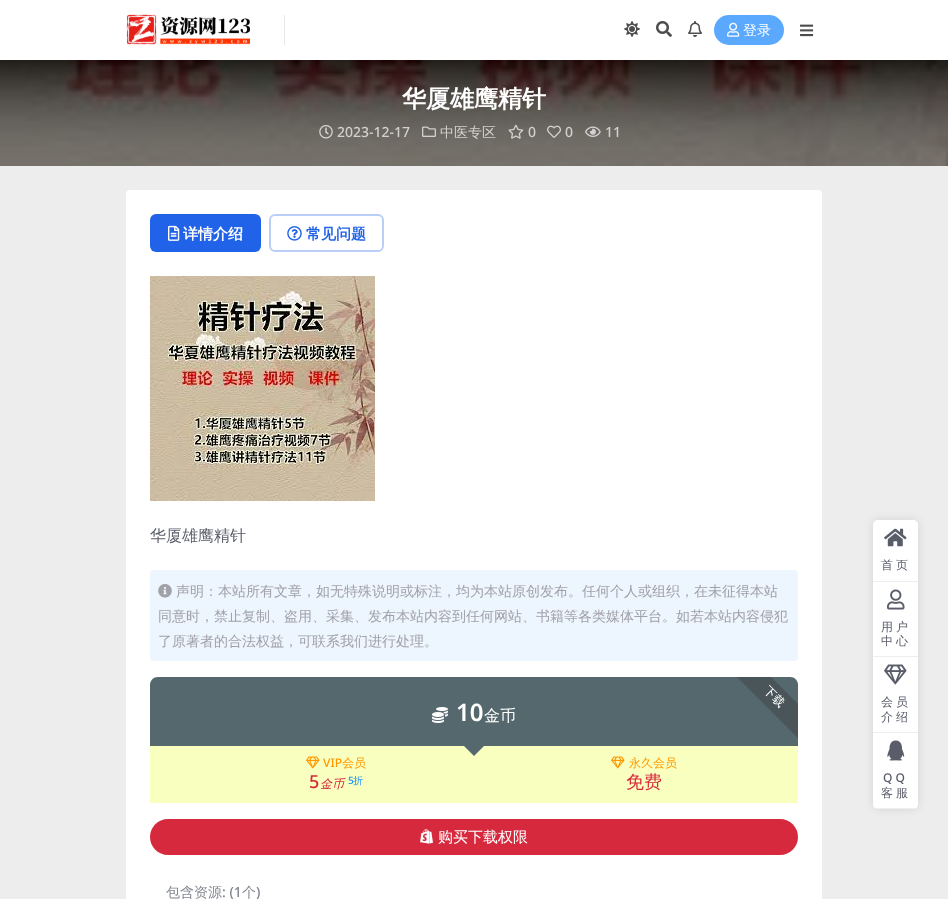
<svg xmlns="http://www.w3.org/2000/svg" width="948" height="899">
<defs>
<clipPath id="clip1"><rect x="873" y="520" width="45" height="289" rx="5"/></clipPath>
</defs>
<rect width="100%" height="100%" fill="#ededed"/>
<rect width="948" height="60" fill="#fff"/>
<image x="126" y="14" width="124" height="31" href="media/1.png"/>
<rect x="284" y="15" width="1" height="30" fill="#e8e8e9"/>
<image x="624" y="21" width="16" height="16" href="media/2.png"/>
<image x="656" y="21" width="16" height="16" href="media/3.png"/>
<image x="688" y="21" width="14" height="16" href="media/4.png"/>
<rect x="714" y="15" width="70" height="30" rx="15" fill="#5ba8ff"/>
<image x="727" y="22" width="13" height="15" href="media/5.png"/>
<text x="743" y="35" style="font-family:WenQuanYi Zen Hei;font-size:14px;font-weight:500;fill:#fff">登录</text>
<image x="800" y="24" width="14" height="13" href="media/6.png"/>
<image x="0" y="60" width="948" height="106" href="media/7.png"/>
<text x="402" y="107" style="font-family:WenQuanYi Zen Hei;font-size:24px;font-weight:bold;fill:#fff">华厦雄鹰精针</text>
<image x="319" y="125" width="14" height="14" href="media/8.png"/>
<text x="337" y="137" style="font-family:Noto Sans;font-size:14px;font-weight:500;fill:#d2d1cf">2023-12-17</text>
<image x="422" y="126" width="14" height="11" href="media/9.png"/>
<text x="440" y="137" style="font-family:WenQuanYi Zen Hei;font-size:14px;font-weight:500;fill:#d2d1cf">中医专区</text>
<image x="508" y="124" width="16" height="15" href="media/10.png"/>
<text x="528" y="137" style="font-family:Noto Sans;font-size:14px;font-weight:500;fill:#d2d1cf">0</text>
<image x="547" y="125" width="14" height="13" href="media/11.png"/>
<text x="565" y="137" style="font-family:Noto Sans;font-size:14px;font-weight:500;fill:#d2d1cf">0</text>
<image x="585" y="126" width="16" height="11" href="media/12.png"/>
<text x="605" y="137" style="font-family:Noto Sans;font-size:14px;font-weight:500;fill:#d2d1cf">11</text>
<rect x="126" y="190" width="696" height="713" rx="4" fill="#fff"/>
<rect x="150" y="214" width="111" height="38" rx="6" fill="#2163e8"/>
<image x="168" y="225" width="12" height="16" href="media/13.png"/>
<text x="183" y="239" style="font-family:WenQuanYi Zen Hei;font-size:15px;font-weight:bold;fill:#fff">详情介绍</text>
<rect x="270" y="215" width="113" height="36" rx="5" fill="none" stroke="#bacff8" stroke-width="2"/>
<image x="287" y="226" width="15" height="15" href="media/14.png"/>
<text x="306" y="239" style="font-family:WenQuanYi Zen Hei;font-size:15px;font-weight:bold;fill:#2163e8">常见问题</text>
<image x="150" y="276" width="225" height="225" href="media/15.png"/>
<text x="150" y="541" style="font-family:WenQuanYi Zen Hei;font-size:16px;font-weight:500;fill:#595d69">华厦雄鹰精针</text>
<rect x="150" y="570" width="648" height="91" rx="4" fill="#edf5fe"/>
<image x="158" y="584" width="14" height="14" href="media/16.png"/>
<text x="176" y="596" style="font-family:WenQuanYi Zen Hei;font-size:14px;font-weight:500;fill:#a1a1a8">声明：本站所有文章，如无特殊说明或标注，均为本站原创发布。任何个人或组织，在未征得本站</text>
<text x="158" y="621" style="font-family:WenQuanYi Zen Hei;font-size:14px;font-weight:500;fill:#a1a1a8">同意时，禁止复制、盗用、采集、发布本站内容到任何网站、书籍等各类媒体平台。如若本站内容侵犯</text>
<text x="158" y="646" style="font-family:WenQuanYi Zen Hei;font-size:14px;font-weight:500;fill:#a1a1a8">了原著者的合法权益，可联系我们进行处理。</text>
<path d="M158 677h632c4.5 0 8 3.5 8 8v118h-648v-118c0-4.5 3.5-8 8-8z" fill="#f9ffbf"/>
<path d="M158 677h632c4.5 0 8 3.5 8 8v61h-648v-61c0-4.5 3.5-8 8-8z" fill="#34495ed4"/>
<path d="M771 677h-34l61 61v-34z" fill="#495559"/>
<text x="763" y="691" transform="rotate(45 763 691)" style="font-family:WenQuanYi Zen Hei;font-size:12px;font-weight:500;fill:#fff">下载</text>
<image x="432" y="707" width="16" height="16" href="media/17.png"/>
<text x="456" y="721" style="font-family:Noto Sans;font-size:24px;font-weight:600;fill:#fff">10</text>
<text x="484" y="721" style="font-family:WenQuanYi Zen Hei;font-size:16px;font-weight:500;fill:#fff">金币</text>
<path d="M464 746h20l-10 10z" fill="#55686e"/>
<image x="306" y="756" width="14" height="13" href="media/18.png"/>
<text x="323" y="767" style="font-family:Noto Sans;font-size:12px;font-weight:500;fill:#ff9800">VIP</text>
<text x="342" y="767" style="font-family:WenQuanYi Zen Hei;font-size:12px;font-weight:500;fill:#ff9800">会员</text>
<text x="309" y="788" style="font-family:Noto Sans;font-size:18px;font-weight:500;fill:#d6293e">5</text>
<text x="320" y="788" style="font-family:WenQuanYi Zen Hei;font-size:12px;font-weight:500;font-style:italic;fill:#d6293e">金币</text>
<text x="348" y="784" style="font-family:Noto Sans;font-size:10px;font-weight:500;fill:#2196f3">5</text>
<text x="353" y="784" style="font-family:WenQuanYi Zen Hei;font-size:10px;font-weight:500;fill:#2196f3">折</text>
<image x="611" y="756" width="14" height="13" href="media/18.png"/>
<text x="629" y="767" style="font-family:WenQuanYi Zen Hei;font-size:12px;font-weight:500;fill:#ff9800">永久会员</text>
<text x="626" y="788" style="font-family:WenQuanYi Zen Hei;font-size:18px;font-weight:500;fill:#d6293e">免费</text>
<path d="M168 819h612c10 0 18 8 18 18c0 10-8 18-18 18h-612c-10 0-18-8-18-18c0-10 8-18 18-18z" fill="#d6293e"/>
<image x="420" y="829" width="13" height="15" href="media/19.png"/>
<text x="438" y="842" style="font-family:WenQuanYi Zen Hei;font-size:15px;font-weight:500;fill:#fff">购买下载权限</text>
<text x="166" y="897" style="font-family:WenQuanYi Zen Hei;font-size:14px;font-weight:500;fill:#83868f">包含资源</text>
<text x="222" y="897" style="font-family:Noto Sans;font-size:14px;font-weight:500;fill:#83868f">: (1</text>
<text x="242" y="897" style="font-family:WenQuanYi Zen Hei;font-size:14px;font-weight:500;fill:#83868f">个</text>
<text x="256" y="897" style="font-family:Noto Sans;font-size:14px;font-weight:500;fill:#83868f">)</text>
<rect x="873" y="520" width="45" height="289" rx="5" fill="#0000001a" filter="blur(5px)"/>
<path d="M878 520h35c3 0 5 2 5 5v57h-45v-57c0-3 2-5 5-5z" fill="#fff"/>
<rect x="873" y="581" width="45" height="1" fill="#eee"/>
<image x="884" y="528" width="23" height="19" href="media/20.png"/>
<text x="881" y="569" style="font-family:WenQuanYi Zen Hei;font-size:12px;font-weight:500;letter-spacing:3px;fill:#595d69">首页</text>
<rect x="873" y="582" width="45" height="74" fill="#fff"/>
<rect x="873" y="656" width="45" height="1" fill="#eee"/>
<image x="887" y="589" width="18" height="21" href="media/21.png"/>
<text x="881" y="631" style="font-family:WenQuanYi Zen Hei;font-size:12px;font-weight:500;letter-spacing:3px;fill:#595d69">用户</text>
<text x="881" y="645" style="font-family:WenQuanYi Zen Hei;font-size:12px;font-weight:500;letter-spacing:3px;fill:#595d69">中心</text>
<rect x="873" y="657" width="45" height="75" fill="#fff"/>
<rect x="873" y="732" width="45" height="1" fill="#eee"/>
<image x="884" y="664" width="23" height="21" href="media/22.png"/>
<text x="881" y="706" style="font-family:WenQuanYi Zen Hei;font-size:12px;font-weight:500;letter-spacing:3px;fill:#595d69">会员</text>
<text x="881" y="721" style="font-family:WenQuanYi Zen Hei;font-size:12px;font-weight:500;letter-spacing:3px;fill:#595d69">介绍</text>
<path d="M873 733h45v71c0 3-2 5-5 5h-35c-3 0-5-2-5-5z" fill="#fff"/>
<g clip-path="url(#clip1)">
<rect x="873" y="808" width="45" height="1" fill="#eee"/>
</g>
<image x="887" y="740" width="18" height="21" href="media/23.png"/>
<text x="883" y="782" style="font-family:Noto Sans;font-size:12px;font-weight:500;letter-spacing:3px;fill:#595d69">QQ</text>
<text x="881" y="797" style="font-family:WenQuanYi Zen Hei;font-size:12px;font-weight:500;letter-spacing:3px;fill:#595d69">客服</text>
</svg>
